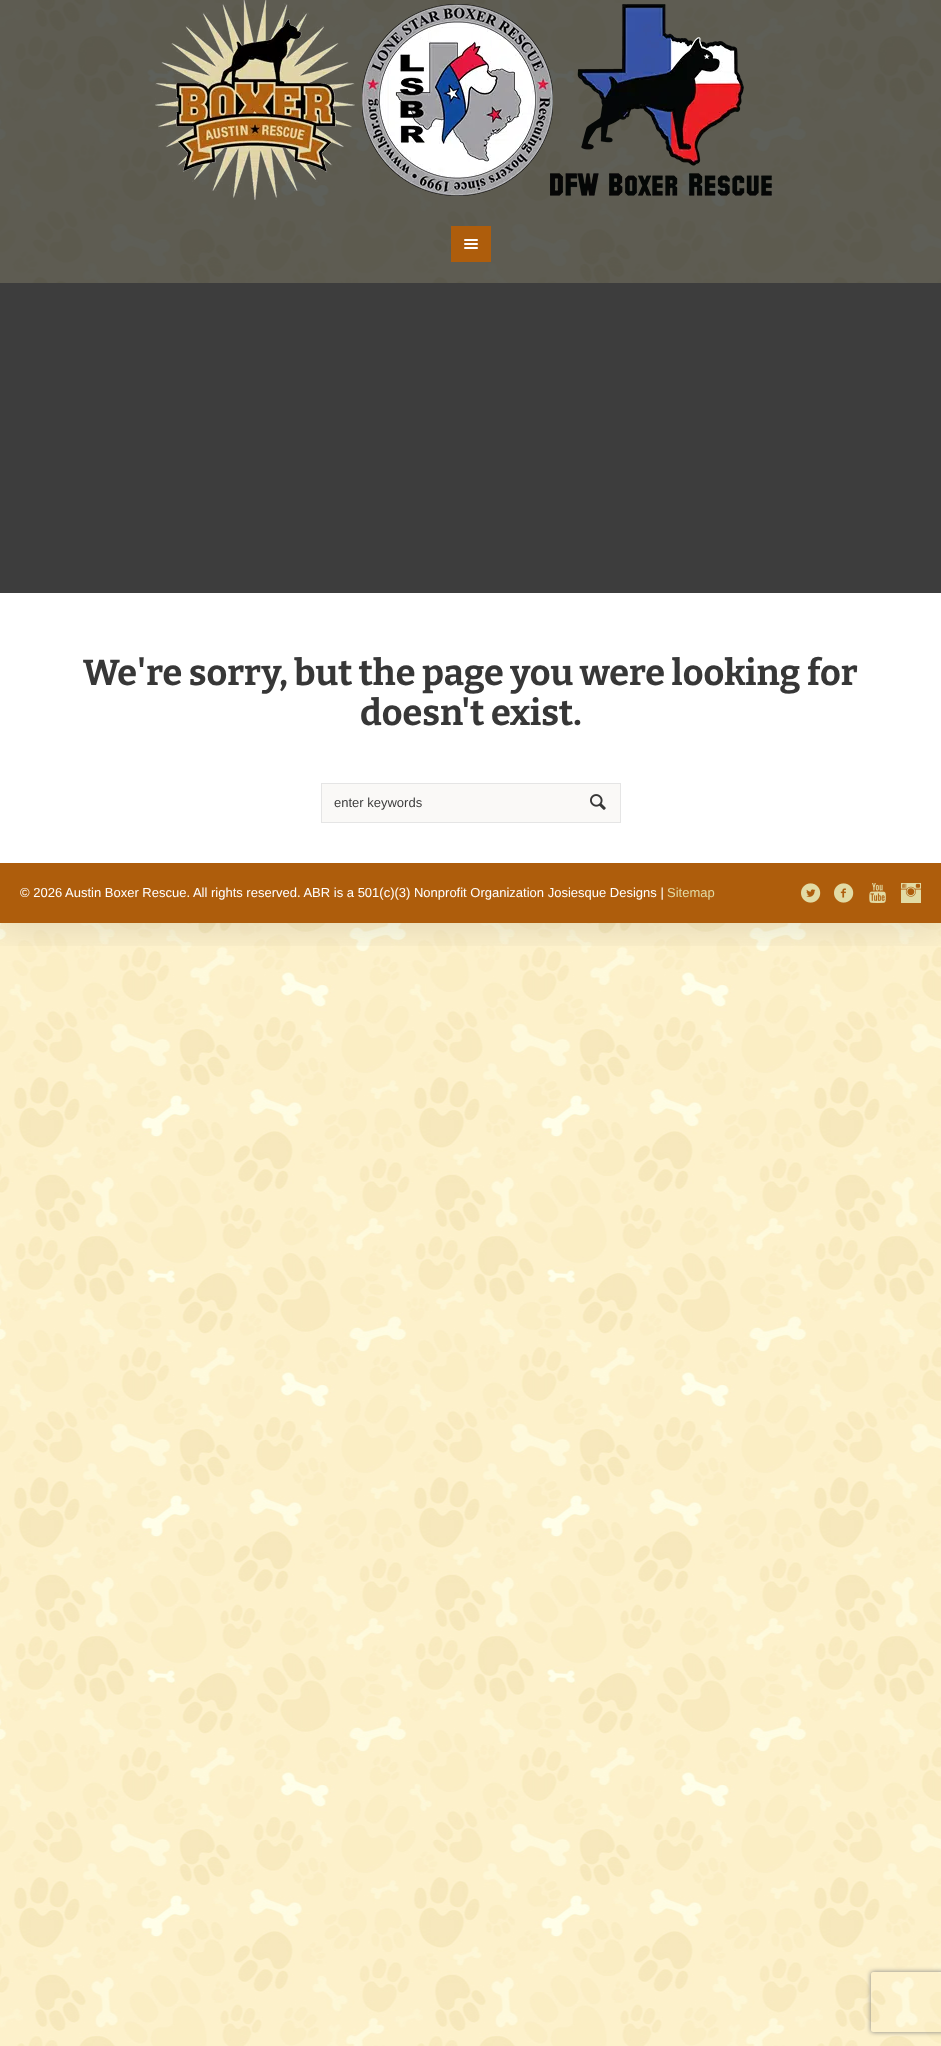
<svg xmlns="http://www.w3.org/2000/svg" width="941" height="2046">
<defs>
<clipPath id="clip1"><rect x="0" y="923" width="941" height="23"/></clipPath>
<clipPath id="clip2"><path d="M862 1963h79v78h-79zm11 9h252c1 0 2 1 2 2v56c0 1-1 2-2 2h-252c-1 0-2-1-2-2v-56c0-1 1-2 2-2z" clip-rule="evenodd"/></clipPath>
</defs>
<rect width="100%" height="100%" fill="#fff"/>
<image x="0" y="0" width="941" height="2046" href="media/1.png"/>
<g clip-path="url(#clip1)">
<rect x="-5" y="-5" width="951" height="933" fill="#0000001c" filter="blur(20px)"/>
</g>
<rect width="941" height="206" fill="#191c1eb3"/>
<image x="155" y="0" width="617" height="200" href="media/2.png"/>
<rect y="206" width="941" height="77" fill="#191c1eb3"/>
<rect x="451" y="226" width="40" height="36" fill="#ae5d0c"/>
<image x="464" y="239" width="14" height="10" href="media/3.png"/>
<rect y="593" width="941" height="270" fill="#fff"/>
<rect y="283" width="941" height="310" fill="#3d3d3d"/>
<text x="83" y="685" style="font-family:Bitter;font-size:36px;font-weight:bold;fill:#373737">We're sorry, but the page you were looking for</text>
<text x="360" y="725" style="font-family:Bitter;font-size:36px;font-weight:bold;fill:#373737">doesn't exist.</text>
<rect x="321.5" y="783.5" width="299" height="39" fill="#faf9f7" stroke="#e5e5e5"/>
<text x="334" y="807" style="font-family:Liberation Sans;font-size:13px;fill:#3d3d3d">enter keywords</text>
<image x="590" y="794" width="16" height="16" href="media/4.png"/>
<rect y="863" width="941" height="60" fill="#ae5d0c"/>
<text x="20" y="897" style="font-family:Liberation Sans;font-size:13px;fill:#fff">© 2026 Austin Boxer Rescue. All rights reserved. ABR is a 501(c)(3) Nonprofit Organization Josiesque Designs |</text>
<text x="667" y="897" style="font-family:Liberation Sans;font-size:13px;fill:#e2dba5">Sitemap</text>
<image x="801" y="883" width="20" height="20" href="media/5.png"/>
<image x="834" y="883" width="20" height="20" href="media/6.png"/>
<image x="869" y="883" width="17" height="20" href="media/7.png"/>
<image x="901" y="883" width="20" height="20" href="media/8.png"/>
<g clip-path="url(#clip2)">
<rect x="871" y="1972" width="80" height="60" rx="2" fill="#808080" filter="blur(2.5px)"/>
</g>
</svg>
